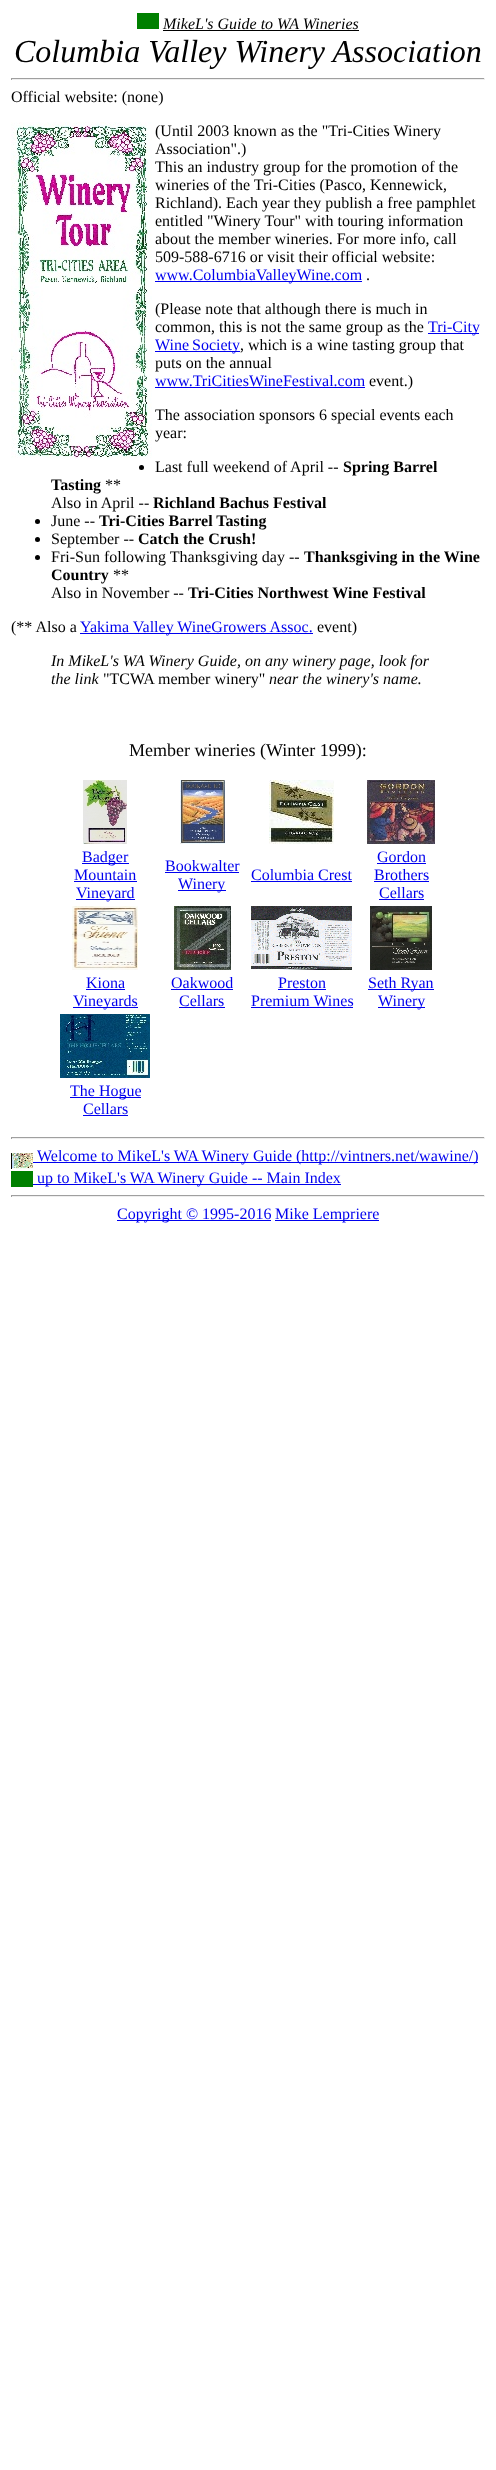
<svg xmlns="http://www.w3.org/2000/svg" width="496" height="2470">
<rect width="100%" height="100%" fill="#fff"/>
<rect x="137" y="13" width="22" height="16" fill="#008000"/>
<text x="163" y="29" style="font-family:Liberation Serif;font-size:16px;font-style:italic;fill:#000">MikeL's Guide to WA Wineries</text>
<rect x="163" y="30" width="196" height="1" fill="#000"/>
<text x="14" y="62" style="font-family:Liberation Serif;font-size:32px;font-style:italic;fill:#000">Columbia Valley Winery Association</text>
<rect x="11" y="78" width="474" height="1" fill="#9f9f9f"/>
<rect x="484" y="78" width="1" height="2" fill="#eee"/>
<rect x="11" y="79" width="474" height="1" fill="#eee"/>
<rect x="11" y="78" width="1" height="2" fill="#9f9f9f"/>
<text x="11" y="102" style="font-family:Liberation Serif;font-size:16px;fill:#000">Official website: (none)</text>
<image x="11" y="122" width="141" height="337" href="media/1.png"/>
<text x="155" y="136" style="font-family:Liberation Serif;font-size:16px;fill:#000">(Until 2003 known as the "Tri-Cities Winery</text>
<text x="155" y="154" style="font-family:Liberation Serif;font-size:16px;fill:#000">Association".)</text>
<text x="155" y="172" style="font-family:Liberation Serif;font-size:16px;fill:#000">This an industry group for the promotion of the</text>
<text x="155" y="190" style="font-family:Liberation Serif;font-size:16px;fill:#000">wineries of the Tri-Cities (Pasco, Kennewick,</text>
<text x="155" y="208" style="font-family:Liberation Serif;font-size:16px;fill:#000">Richland). Each year they publish a free pamphlet</text>
<text x="155" y="226" style="font-family:Liberation Serif;font-size:16px;fill:#000">entitled "Winery Tour" with touring information</text>
<text x="155" y="244" style="font-family:Liberation Serif;font-size:16px;fill:#000">about the member wineries. For more info, call</text>
<text x="155" y="262" style="font-family:Liberation Serif;font-size:16px;fill:#000">509-588-6716 or visit their official website:</text>
<rect x="155" y="281" width="207" height="1" fill="#00e"/>
<text x="155" y="280" style="font-family:Liberation Serif;font-size:16px;fill:#00e">www.ColumbiaValleyWine.com</text>
<text x="366" y="280" style="font-family:Liberation Serif;font-size:16px;fill:#000">.</text>
<text x="155" y="314" style="font-family:Liberation Serif;font-size:16px;fill:#000">(Please note that although there is much in</text>
<text x="155" y="332" style="font-family:Liberation Serif;font-size:16px;fill:#000">common, this is not the same group as the</text>
<rect x="428" y="333" width="51" height="1" fill="#00e"/>
<text x="428" y="332" style="font-family:Liberation Serif;font-size:16px;fill:#00e">Tri-City</text>
<rect x="155" y="351" width="85" height="1" fill="#00e"/>
<text x="155" y="350" word-spacing="-1" style="font-family:Liberation Serif;font-size:16px;fill:#00e">Wine Society</text>
<text x="240" y="350" style="font-family:Liberation Serif;font-size:16px;fill:#000">, which is a wine tasting group that</text>
<text x="155" y="368" style="font-family:Liberation Serif;font-size:16px;fill:#000">puts on the annual</text>
<text x="155" y="386" style="font-family:Liberation Serif;font-size:16px;fill:#00e">www.TriCitiesWineFestival.com</text>
<rect x="155" y="387" width="210" height="1" fill="#00e"/>
<text x="369" y="386" style="font-family:Liberation Serif;font-size:16px;fill:#000">event.)</text>
<text x="155" y="420" style="font-family:Liberation Serif;font-size:16px;fill:#000">The association sponsors 6 special events each</text>
<text x="155" y="438" style="font-family:Liberation Serif;font-size:16px;fill:#000">year:</text>
<circle cx="141.5" cy="467.5" r="2.5" fill="#000"/>
<text x="155" y="472" style="font-family:Liberation Serif;font-size:16px;fill:#000">Last full weekend of April --</text>
<text x="343" y="472" style="font-family:Liberation Serif;font-size:16px;font-weight:bold;fill:#000">Spring Barrel</text>
<text x="51" y="490" style="font-family:Liberation Serif;font-size:16px;font-weight:bold;fill:#000">Tasting</text>
<text x="105" y="490" style="font-family:Liberation Serif;font-size:16px;fill:#000">**</text>
<text x="51" y="508" style="font-family:Liberation Serif;font-size:16px;fill:#000">Also in April --</text>
<text x="153" y="508" style="font-family:Liberation Serif;font-size:16px;font-weight:bold;fill:#000">Richland Bachus Festival</text>
<circle cx="37.5" cy="521.5" r="2.5" fill="#000"/>
<text x="51" y="526" style="font-family:Liberation Serif;font-size:16px;fill:#000">June --</text>
<text x="99" y="526" style="font-family:Liberation Serif;font-size:16px;font-weight:bold;fill:#000">Tri-Cities Barrel Tasting</text>
<circle cx="37.5" cy="539.5" r="2.5" fill="#000"/>
<text x="51" y="544" style="font-family:Liberation Serif;font-size:16px;fill:#000">September --</text>
<text x="138" y="544" style="font-family:Liberation Serif;font-size:16px;font-weight:bold;fill:#000">Catch the Crush!</text>
<circle cx="37.5" cy="557.5" r="2.5" fill="#000"/>
<text x="51" y="562" style="font-family:Liberation Serif;font-size:16px;fill:#000">Fri-Sun following Thanksgiving day --</text>
<text x="304" y="562" style="font-family:Liberation Serif;font-size:16px;font-weight:bold;fill:#000">Thanksgiving in the Wine</text>
<text x="51" y="580" style="font-family:Liberation Serif;font-size:16px;font-weight:bold;fill:#000">Country</text>
<text x="113" y="580" style="font-family:Liberation Serif;font-size:16px;fill:#000">**</text>
<text x="51" y="598" style="font-family:Liberation Serif;font-size:16px;fill:#000">Also in November --</text>
<text x="188" y="598" style="font-family:Liberation Serif;font-size:16px;font-weight:bold;fill:#000">Tri-Cities Northwest Wine Festival</text>
<text x="11" y="632" style="font-family:Liberation Serif;font-size:16px;fill:#000">(** Also a</text>
<rect x="80" y="633" width="233" height="1" fill="#00e"/>
<text x="80" y="632" style="font-family:Liberation Serif;font-size:16px;fill:#00e">Yakima Valley WineGrowers Assoc.</text>
<text x="317" y="632" style="font-family:Liberation Serif;font-size:16px;fill:#000">event)</text>
<text x="51" y="666" style="font-family:Liberation Serif;font-size:16px;font-style:italic;fill:#000">In MikeL's WA Winery Guide, on any winery page, look for</text>
<text x="51" y="684" style="font-family:Liberation Serif;font-size:16px;font-style:italic;fill:#000">the link</text>
<text x="103" y="684" style="font-family:Liberation Serif;font-size:16px;fill:#000">"TCWA member winery"</text>
<text x="269" y="684" style="font-family:Liberation Serif;font-size:16px;font-style:italic;fill:#000">near the winery's name.</text>
<text x="129" y="756" style="font-family:Liberation Serif;font-size:18px;fill:#000">Member wineries (Winter 1999):</text>
<image x="83" y="780" width="44" height="64" href="media/2.png"/>
<image x="180" y="780" width="45" height="64" href="media/3.png"/>
<image x="269" y="780" width="65" height="64" href="media/4.png"/>
<image x="367" y="780" width="68" height="64" href="media/5.png"/>
<rect x="82" y="863" width="47" height="1" fill="#00e"/>
<text x="82" y="862" style="font-family:Liberation Serif;font-size:16px;fill:#00e">Badger</text>
<text x="74" y="880" style="font-family:Liberation Serif;font-size:16px;fill:#00e">Mountain</text>
<rect x="74" y="881" width="63" height="1" fill="#00e"/>
<rect x="76" y="899" width="59" height="1" fill="#00e"/>
<text x="76" y="898" style="font-family:Liberation Serif;font-size:16px;fill:#00e">Vineyard</text>
<text x="165" y="871" style="font-family:Liberation Serif;font-size:16px;fill:#00e">Bookwalter</text>
<rect x="165" y="872" width="74" height="1" fill="#00e"/>
<rect x="178" y="890" width="48" height="1" fill="#00e"/>
<text x="178" y="889" style="font-family:Liberation Serif;font-size:16px;fill:#00e">Winery</text>
<text x="251" y="880" style="font-family:Liberation Serif;font-size:16px;fill:#00e">Columbia Crest</text>
<rect x="251" y="881" width="101" height="1" fill="#00e"/>
<text x="377" y="862" style="font-family:Liberation Serif;font-size:16px;fill:#00e">Gordon</text>
<rect x="377" y="863" width="49" height="1" fill="#00e"/>
<text x="374" y="880" style="font-family:Liberation Serif;font-size:16px;fill:#00e">Brothers</text>
<rect x="374" y="881" width="55" height="1" fill="#00e"/>
<text x="379" y="898" style="font-family:Liberation Serif;font-size:16px;fill:#00e">Cellars</text>
<rect x="379" y="899" width="45" height="1" fill="#00e"/>
<image x="72" y="906" width="66" height="64" href="media/6.png"/>
<image x="174" y="906" width="57" height="64" href="media/7.png"/>
<image x="251" y="906" width="101" height="64" href="media/8.png"/>
<image x="370" y="906" width="62" height="64" href="media/9.png"/>
<text x="86" y="988" style="font-family:Liberation Serif;font-size:16px;fill:#00e">Kiona</text>
<rect x="86" y="989" width="39" height="1" fill="#00e"/>
<rect x="73" y="1007" width="65" height="1" fill="#00e"/>
<text x="73" y="1006" style="font-family:Liberation Serif;font-size:16px;fill:#00e">Vineyards</text>
<text x="171" y="988" style="font-family:Liberation Serif;font-size:16px;fill:#00e">Oakwood</text>
<rect x="171" y="989" width="62" height="1" fill="#00e"/>
<text x="179" y="1006" style="font-family:Liberation Serif;font-size:16px;fill:#00e">Cellars</text>
<rect x="179" y="1007" width="46" height="1" fill="#00e"/>
<text x="278" y="988" style="font-family:Liberation Serif;font-size:16px;fill:#00e">Preston</text>
<rect x="278" y="989" width="48" height="1" fill="#00e"/>
<text x="251" y="1006" style="font-family:Liberation Serif;font-size:16px;fill:#00e">Premium Wines</text>
<rect x="251" y="1007" width="102" height="1" fill="#00e"/>
<rect x="368" y="989" width="66" height="1" fill="#00e"/>
<text x="368" y="988" style="font-family:Liberation Serif;font-size:16px;fill:#00e">Seth Ryan</text>
<rect x="378" y="1007" width="47" height="1" fill="#00e"/>
<text x="378" y="1006" style="font-family:Liberation Serif;font-size:16px;fill:#00e">Winery</text>
<image x="60" y="1014" width="90" height="64" href="media/10.png"/>
<rect x="70" y="1097" width="71" height="1" fill="#00e"/>
<text x="70" y="1096" style="font-family:Liberation Serif;font-size:16px;fill:#00e">The Hogue</text>
<text x="83" y="1114" style="font-family:Liberation Serif;font-size:16px;fill:#00e">Cellars</text>
<rect x="83" y="1115" width="45" height="1" fill="#00e"/>
<rect x="11" y="1137" width="474" height="1" fill="#9f9f9f"/>
<rect x="484" y="1137" width="1" height="2" fill="#eee"/>
<rect x="11" y="1138" width="474" height="1" fill="#eee"/>
<rect x="11" y="1137" width="1" height="2" fill="#9f9f9f"/>
<image x="11" y="1153" width="22" height="16" href="media/11.png"/>
<rect x="33" y="1162" width="445" height="1" fill="#00e"/>
<text x="37" y="1161" style="font-family:Liberation Serif;font-size:16px;fill:#00e">Welcome to MikeL's WA Winery Guide (http://vintners.net/wawine/)</text>
<rect x="33" y="1184" width="308" height="1" fill="#00e"/>
<text x="37" y="1183" style="font-family:Liberation Serif;font-size:16px;fill:#00e">up to MikeL's WA Winery Guide -- Main Index</text>
<rect x="11" y="1171" width="22" height="16" fill="#008000"/>
<rect x="11" y="1195" width="474" height="1" fill="#9f9f9f"/>
<rect x="484" y="1195" width="1" height="2" fill="#eee"/>
<rect x="11" y="1196" width="474" height="1" fill="#eee"/>
<rect x="11" y="1195" width="1" height="2" fill="#9f9f9f"/>
<rect x="117" y="1220" width="154" height="1" fill="#00e"/>
<text x="117" y="1219" style="font-family:Liberation Serif;font-size:16px;fill:#00e">Copyright © 1995-2016</text>
<rect x="275" y="1220" width="104" height="1" fill="#00e"/>
<text x="275" y="1219" style="font-family:Liberation Serif;font-size:16px;fill:#00e">Mike Lempriere</text>
</svg>
